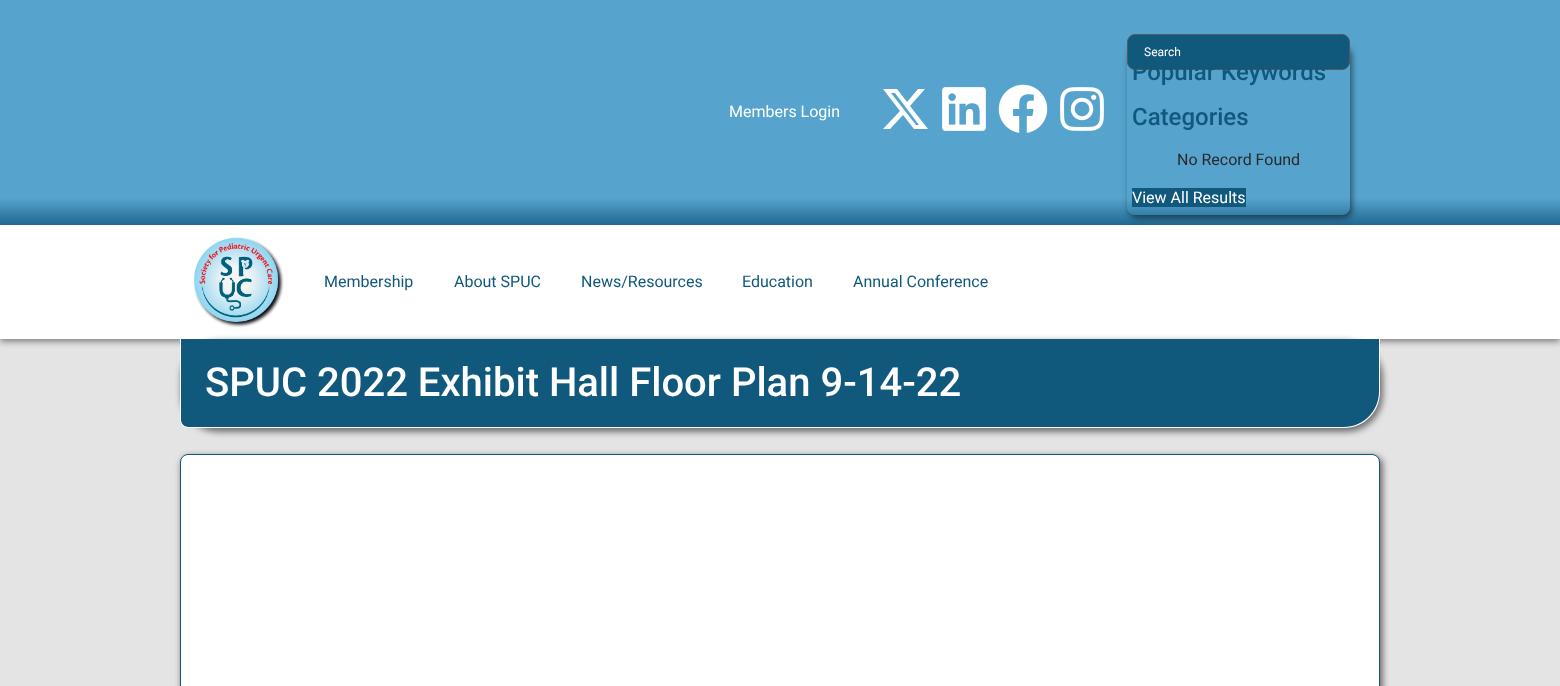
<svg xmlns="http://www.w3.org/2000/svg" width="1560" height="686">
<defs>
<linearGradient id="g1" gradientUnits="userSpaceOnUse" x1="780" y1="0" x2="780" y2="225"><stop offset="0.88" stop-color="#56a4ce"/><stop offset="1" stop-color="#206990"/></linearGradient>
<clipPath id="clip1"><path d="M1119 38h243v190h-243zm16 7h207c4.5 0 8 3.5 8 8v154c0 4.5-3.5 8-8 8h-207c-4.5 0-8-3.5-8-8v-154c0-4.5 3.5-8 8-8z" clip-rule="evenodd"/></clipPath>
</defs>
<rect width="100%" height="100%" fill="#e4e4e4"/>
<rect y="227" width="1560" height="114" fill="#00000080" filter="blur(3.5px)"/>
<rect width="1560" height="225" fill="url(#g1)"/>
<text x="729" y="117" style="font-family:Roboto;font-size:16px;fill:#fff">Members Login</text>
<path d="M918 89h7l-15 17l18 23h-14l-11-14l-13 14h-7l17-18l-17-22h14l10 13zm-2 36h3l-24-32h-4z" fill="#fff"/>
<image x="942" y="87" width="44" height="44" href="media/1.png"/>
<image x="998" y="84" width="50" height="49" href="media/2.png"/>
<image x="1060" y="87" width="44" height="44" href="media/3.png"/>
<rect y="225" width="1560" height="114" fill="#fff"/>
<g clip-path="url(#clip1)">
<rect x="1129" y="48" width="223" height="170" rx="8" fill="#00000080" filter="blur(3px)"/>
</g>
<rect x="1127.5" y="34.5" width="222" height="35" rx="7.5" fill="#10587c" stroke="#54595f"/>
<text x="1144" y="56" style="font-family:Roboto;font-size:12px;fill:#fff">Search</text>
<text x="1132" y="80" style="font-family:Roboto;font-size:24px;font-weight:500;fill:#10587c">Popular Keywords</text>
<text x="1132" y="125" style="font-family:Roboto;font-size:24px;font-weight:500;fill:#10587c">Categories</text>
<text x="1177" y="165" style="font-family:Roboto;font-size:16px;fill:#292929">No Record Found</text>
<rect x="1132" y="188" width="114" height="19" fill="#10587c"/>
<text x="1132" y="203" style="font-family:Roboto;font-size:16px;fill:#fff">View All Results</text>
<image x="193" y="237" width="91" height="91" href="media/4.png"/>
<text x="324" y="287" style="font-family:Roboto;font-size:16px;fill:#10587c">Membership</text>
<text x="454" y="287" style="font-family:Roboto;font-size:16px;fill:#10587c">About SPUC</text>
<text x="581" y="287" style="font-family:Roboto;font-size:16px;fill:#10587c">News/Resources</text>
<text x="742" y="287" style="font-family:Roboto;font-size:16px;fill:#10587c">Education</text>
<text x="853" y="287" style="font-family:Roboto;font-size:16px;fill:#10587c">Annual Conference</text>
<rect x="181" y="341" width="1202" height="91" rx="37" fill="#00000080" filter="blur(3px)"/>
<path d="M181 339h1198v53c0 19.5-15.5 35-35 35h-1156c-4 0-7-3-7-7z" fill="#10587c"/>
<path d="M180 339h1200v53c0 20-16 36-36 36h-1156c-4 0-8-4-8-8zm1 0h1198v53c0 19-16 35-35 35h-1156c-4 0-7-3-7-7z" fill="#fff" fill-rule="evenodd"/>
<text x="205" y="396" style="font-family:Roboto;font-size:40px;font-weight:500;fill:#fff">SPUC 2022 Exhibit Hall Floor Plan 9-14-22</text>
<rect x="181" y="456" width="1202" height="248" rx="9" fill="#00000080" filter="blur(3px)"/>
<rect x="180.5" y="454.5" width="1199" height="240" rx="7.5" fill="#fff" stroke="#10587c"/>
</svg>
